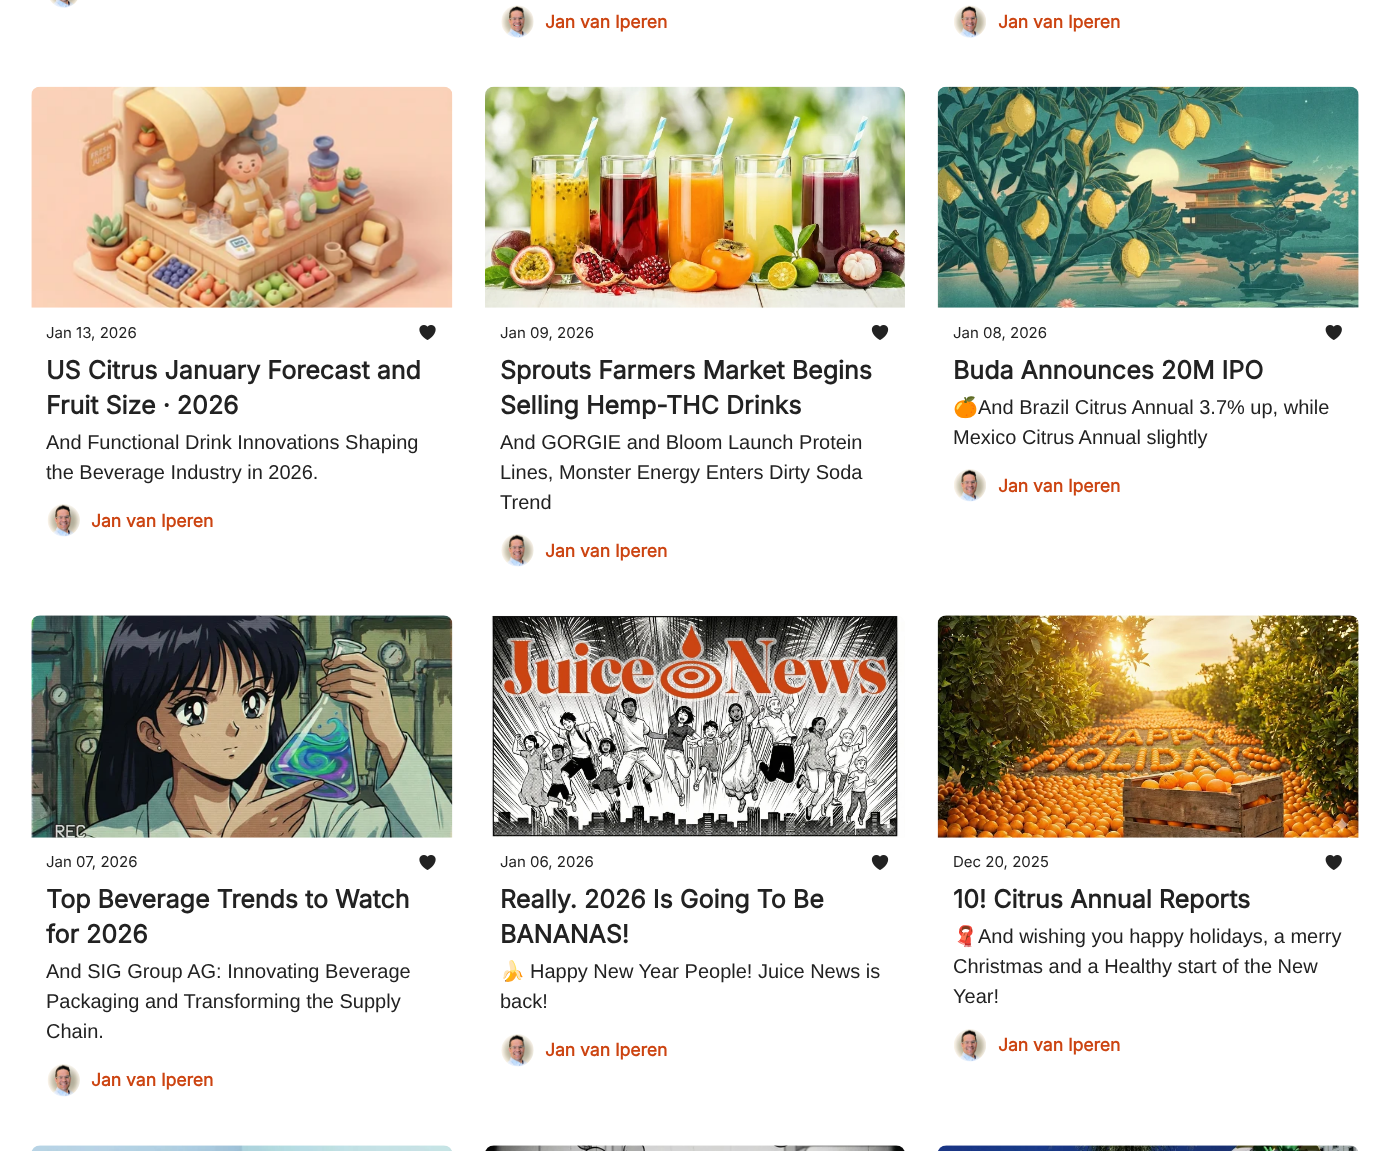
<svg xmlns="http://www.w3.org/2000/svg" width="1389" height="1151">
<defs>
<clipPath id="clip1"><rect x="953" y="393" width="391" height="60"/></clipPath>
<clipPath id="clip2"><rect x="500" y="958" width="390" height="60"/></clipPath>
<clipPath id="clip3"><rect x="953" y="923" width="391" height="90"/></clipPath>
</defs>
<rect width="100%" height="100%" fill="#fff"/>
<image x="50" y="0" width="28" height="8" href="media/1.png"/>
<image x="501" y="5" width="33" height="33" href="media/2.png"/>
<text x="545" y="28" style="font-family:Inter;font-size:17.5px;font-weight:bold;fill:#c41">Jan van Iperen</text>
<image x="954" y="5" width="32" height="33" href="media/3.png"/>
<text x="998" y="28" style="font-family:Inter;font-size:17.5px;font-weight:bold;fill:#c41">Jan van Iperen</text>
<image x="31" y="86" width="422" height="222" href="media/4.png"/>
<text x="46" y="338" style="font-family:Inter;font-size:15px;fill:#222">Jan 13, 2026</text>
<image x="419" y="325" width="17" height="15" href="media/5.png"/>
<text x="46" y="379" style="font-family:Inter;font-size:25px;font-weight:bold;fill:#222">US Citrus January Forecast and</text>
<text x="46" y="414" style="font-family:Inter;font-size:25px;font-weight:bold;fill:#222">Fruit Size · 2026</text>
<text x="46" y="449" style="font-family:Liberation Sans;font-size:20px;fill:#222">And Functional Drink Innovations Shaping</text>
<text x="46" y="479" style="font-family:Liberation Sans;font-size:20px;fill:#222">the Beverage Industry in 2026.</text>
<image x="47" y="504" width="33" height="33" href="media/6.png"/>
<text x="91" y="527" style="font-family:Inter;font-size:17.5px;font-weight:bold;fill:#c41">Jan van Iperen</text>
<image x="485" y="86" width="420" height="222" href="media/7.png"/>
<text x="500" y="338" style="font-family:Inter;font-size:15px;fill:#222">Jan 09, 2026</text>
<image x="871" y="325" width="18" height="15" href="media/8.png"/>
<text x="500" y="379" style="font-family:Inter;font-size:25px;font-weight:bold;fill:#222">Sprouts Farmers Market Begins</text>
<text x="500" y="414" style="font-family:Inter;font-size:25px;font-weight:bold;fill:#222">Selling Hemp-THC Drinks</text>
<text x="500" y="449" style="font-family:Liberation Sans;font-size:20px;fill:#222">And GORGIE and Bloom Launch Protein</text>
<text x="500" y="479" style="font-family:Liberation Sans;font-size:20px;fill:#222">Lines, Monster Energy Enters Dirty Soda</text>
<text x="500" y="509" style="font-family:Liberation Sans;font-size:20px;fill:#222">Trend</text>
<image x="501" y="534" width="33" height="33" href="media/9.png"/>
<text x="545" y="557" style="font-family:Inter;font-size:17.5px;font-weight:bold;fill:#c41">Jan van Iperen</text>
<image x="937" y="86" width="422" height="222" href="media/10.png"/>
<text x="953" y="338" style="font-family:Inter;font-size:15px;fill:#222">Jan 08, 2026</text>
<image x="1325" y="325" width="17" height="15" href="media/11.png"/>
<text x="953" y="379" style="font-family:Inter;font-size:25px;font-weight:bold;fill:#222">Buda Announces 20M IPO</text>
<g clip-path="url(#clip1)">
<text x="953" y="414" style="font-family:Noto Color Emoji;font-size:20px;fill:#222">🍊</text>
</g>
<text x="978" y="414" style="font-family:Liberation Sans;font-size:20px;fill:#222">And Brazil Citrus Annual 3.7% up, while</text>
<text x="953" y="444" style="font-family:Liberation Sans;font-size:20px;fill:#222">Mexico Citrus Annual slightly</text>
<image x="954" y="469" width="32" height="33" href="media/12.png"/>
<text x="998" y="492" style="font-family:Inter;font-size:17.5px;font-weight:bold;fill:#c41">Jan van Iperen</text>
<image x="31" y="615" width="422" height="223" href="media/13.png"/>
<text x="46" y="867" style="font-family:Inter;font-size:15px;fill:#222">Jan 07, 2026</text>
<image x="419" y="855" width="17" height="15" href="media/5.png"/>
<text x="46" y="908" style="font-family:Inter;font-size:25px;font-weight:bold;fill:#222">Top Beverage Trends to Watch</text>
<text x="46" y="943" style="font-family:Inter;font-size:25px;font-weight:bold;fill:#222">for 2026</text>
<text x="46" y="978" style="font-family:Liberation Sans;font-size:20px;fill:#222">And SIG Group AG: Innovating Beverage</text>
<text x="46" y="1008" style="font-family:Liberation Sans;font-size:20px;fill:#222">Packaging and Transforming the Supply</text>
<text x="46" y="1038" style="font-family:Liberation Sans;font-size:20px;fill:#222">Chain.</text>
<image x="47" y="1064" width="33" height="33" href="media/6.png"/>
<text x="91" y="1086" style="font-family:Inter;font-size:17.5px;font-weight:bold;fill:#c41">Jan van Iperen</text>
<image x="491" y="615" width="414" height="223" href="media/14.png"/>
<text x="500" y="867" style="font-family:Inter;font-size:15px;fill:#222">Jan 06, 2026</text>
<image x="871" y="855" width="18" height="15" href="media/8.png"/>
<text x="500" y="908" style="font-family:Inter;font-size:25px;font-weight:bold;fill:#222">Really. 2026 Is Going To Be</text>
<text x="500" y="943" style="font-family:Inter;font-size:25px;font-weight:bold;fill:#222">BANANAS!</text>
<g clip-path="url(#clip2)">
<text x="500" y="978" style="font-family:Noto Color Emoji;font-size:20px;fill:#222">🍌</text>
</g>
<text x="530" y="978" style="font-family:Liberation Sans;font-size:20px;fill:#222">Happy New Year People! Juice News is</text>
<text x="500" y="1008" style="font-family:Liberation Sans;font-size:20px;fill:#222">back!</text>
<image x="501" y="1034" width="33" height="33" href="media/15.png"/>
<text x="545" y="1056" style="font-family:Inter;font-size:17.5px;font-weight:bold;fill:#c41">Jan van Iperen</text>
<image x="937" y="615" width="422" height="223" href="media/16.png"/>
<text x="953" y="867" style="font-family:Inter;font-size:15px;fill:#222">Dec 20, 2025</text>
<image x="1325" y="855" width="17" height="15" href="media/11.png"/>
<text x="953" y="908" style="font-family:Inter;font-size:25px;font-weight:bold;fill:#222">10! Citrus Annual Reports</text>
<g clip-path="url(#clip3)">
<text x="953" y="943" style="font-family:Noto Color Emoji;font-size:20px;fill:#222">🧣</text>
</g>
<text x="978" y="943" style="font-family:Liberation Sans;font-size:20px;fill:#222">And wishing you happy holidays, a merry</text>
<text x="953" y="973" style="font-family:Liberation Sans;font-size:20px;fill:#222">Christmas and a Healthy start of the New</text>
<text x="953" y="1003" style="font-family:Liberation Sans;font-size:20px;fill:#222">Year!</text>
<image x="954" y="1029" width="32" height="33" href="media/12.png"/>
<text x="998" y="1051" style="font-family:Inter;font-size:17.5px;font-weight:bold;fill:#c41">Jan van Iperen</text>
<image x="31" y="1145" width="421" height="6" href="media/17.png"/>
<image x="485" y="1145" width="420" height="6" href="media/18.png"/>
<image x="938" y="1145" width="420" height="6" href="media/19.png"/>
</svg>
